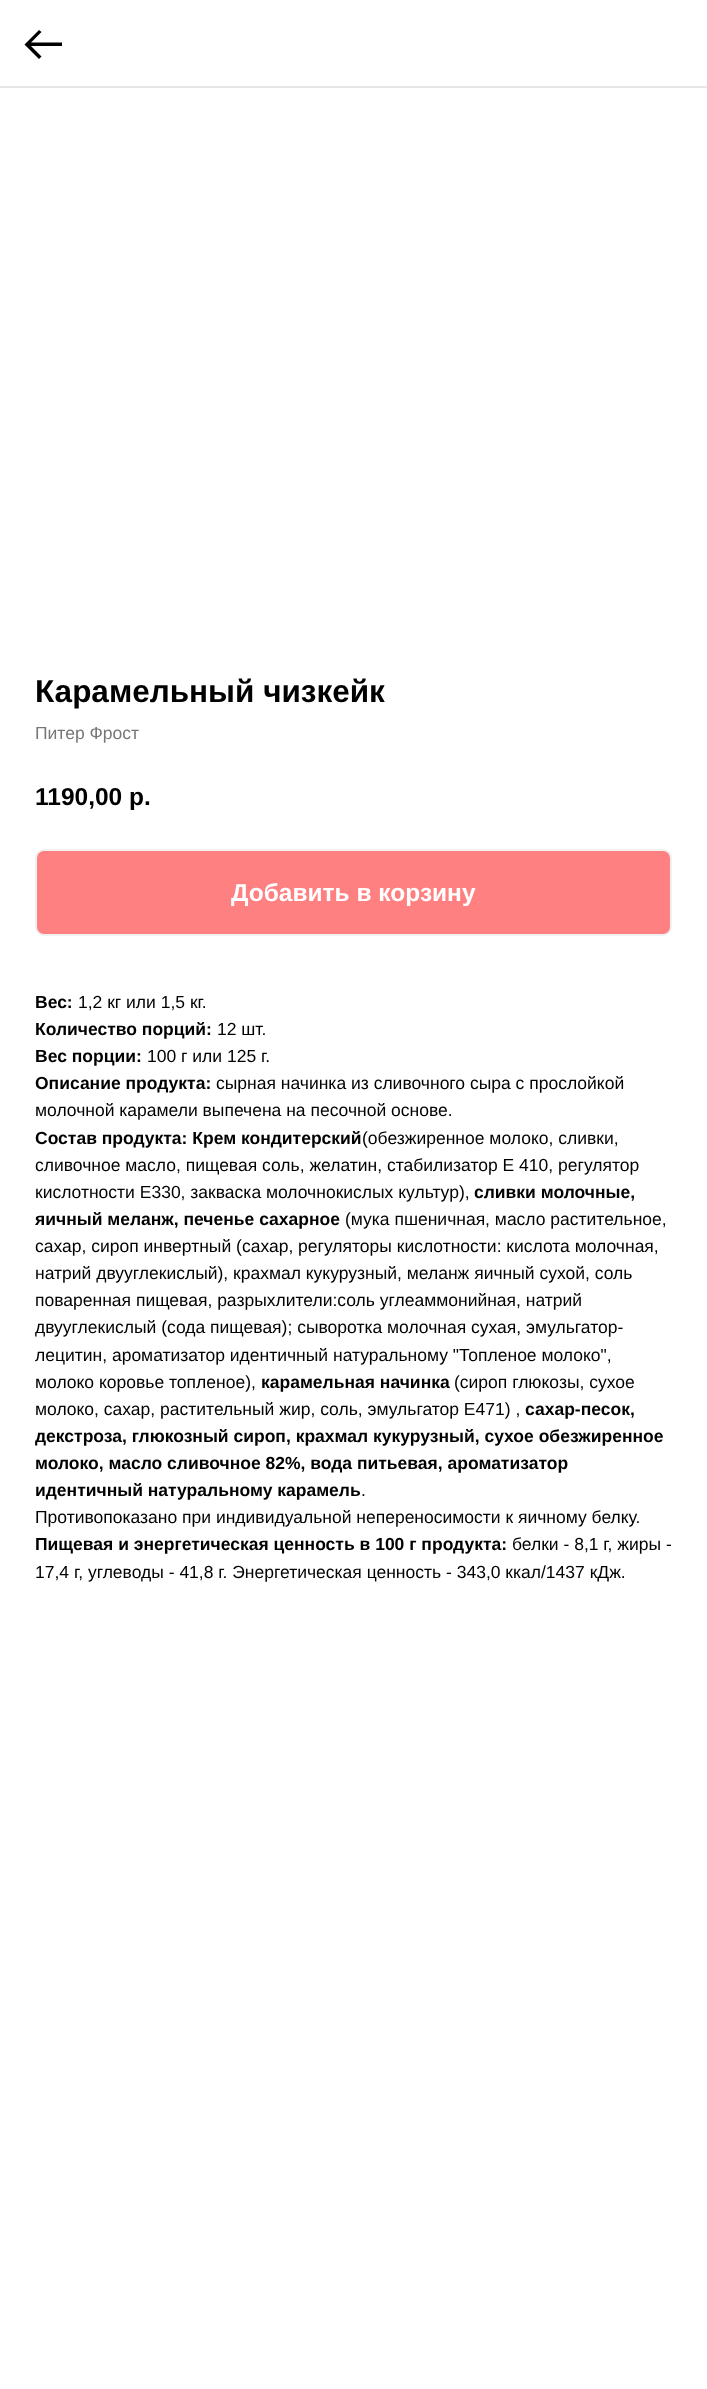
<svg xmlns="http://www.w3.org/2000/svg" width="707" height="2389">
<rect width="100%" height="100%" fill="#fff"/>
<rect y="86" width="707" height="2" fill="#e6e6e6"/>
<path d="M39 30l2.5 2l-10.5 10.5h31v3.5h-31l10.5 10.5l-2.5 2.5l-14.5-14.5z" fill="#000"/>
<text x="35" y="702" style="font-family:Liberation Sans;font-size:31.5px;font-weight:bold;fill:#000">Карамельный чизкейк</text>
<text x="35" y="739" style="font-family:Liberation Sans;font-size:17.5px;fill:#777">Питер Фрост</text>
<text x="35" y="805" style="font-family:Liberation Sans;font-size:24.5px;font-weight:bold;fill:#000">1190,00 р.</text>
<rect x="36" y="850" width="635" height="85" rx="8" fill="#ff8080" stroke="#f1f1f1" stroke-width="2"/>
<text x="231" y="901" style="font-family:Liberation Sans;font-size:24.5px;font-weight:bold;fill:#fff">Добавить в корзину</text>
<text x="35" y="1008" style="font-family:Liberation Sans;font-size:17.5px;font-weight:bold;fill:#000">Вес:</text>
<text x="78" y="1008" style="font-family:Liberation Sans;font-size:17.5px;fill:#000">1,2 кг или 1,5 кг.</text>
<text x="35" y="1035" style="font-family:Liberation Sans;font-size:17.5px;font-weight:bold;fill:#000">Количество порций:</text>
<text x="217" y="1035" style="font-family:Liberation Sans;font-size:17.5px;fill:#000">12 шт.</text>
<text x="35" y="1062" style="font-family:Liberation Sans;font-size:17.5px;font-weight:bold;fill:#000">Вес порции:</text>
<text x="147" y="1062" style="font-family:Liberation Sans;font-size:17.5px;fill:#000">100 г или 125 г.</text>
<text x="35" y="1089" style="font-family:Liberation Sans;font-size:17.5px;font-weight:bold;fill:#000">Описание продукта:</text>
<text x="216" y="1089" style="font-family:Liberation Sans;font-size:17.5px;fill:#000">сырная начинка из сливочного сыра с прослойкой</text>
<text x="35" y="1116" style="font-family:Liberation Sans;font-size:17.5px;fill:#000">молочной карамели выпечена на песочной основе.</text>
<text x="35" y="1144" style="font-family:Liberation Sans;font-size:17.5px;font-weight:bold;fill:#000">Состав продукта: Крем кондитерский</text>
<text x="362" y="1144" style="font-family:Liberation Sans;font-size:17.5px;fill:#000">(обезжиренное молоко, сливки,</text>
<text x="35" y="1171" style="font-family:Liberation Sans;font-size:17.5px;fill:#000">сливочное масло, пищевая соль, желатин, стабилизатор Е 410, регулятор</text>
<text x="35" y="1198" style="font-family:Liberation Sans;font-size:17.5px;fill:#000">кислотности Е330, закваска молочнокислых культур),</text>
<text x="474" y="1198" style="font-family:Liberation Sans;font-size:17.5px;font-weight:bold;fill:#000">сливки молочные,</text>
<text x="35" y="1225" style="font-family:Liberation Sans;font-size:17.5px;font-weight:bold;fill:#000">яичный меланж, печенье сахарное</text>
<text x="345" y="1225" style="font-family:Liberation Sans;font-size:17.5px;fill:#000">(мука пшеничная, масло растительное,</text>
<text x="35" y="1252" style="font-family:Liberation Sans;font-size:17.5px;fill:#000">сахар, сироп инвертный (сахар, регуляторы кислотности: кислота молочная,</text>
<text x="35" y="1279" style="font-family:Liberation Sans;font-size:17.5px;fill:#000">натрий двууглекислый), крахмал кукурузный, меланж яичный сухой, соль</text>
<text x="35" y="1306" style="font-family:Liberation Sans;font-size:17.5px;fill:#000">поваренная пищевая, разрыхлители:соль углеаммонийная, натрий</text>
<text x="35" y="1333" style="font-family:Liberation Sans;font-size:17.5px;fill:#000">двууглекислый (сода пищевая); сыворотка молочная сухая, эмульгатор-</text>
<text x="35" y="1361" style="font-family:Liberation Sans;font-size:17.5px;fill:#000">лецитин, ароматизатор идентичный натуральному "Топленое молоко",</text>
<text x="35" y="1388" style="font-family:Liberation Sans;font-size:17.5px;fill:#000">молоко коровье топленое),</text>
<text x="261" y="1388" style="font-family:Liberation Sans;font-size:17.5px;font-weight:bold;fill:#000">карамельная начинка</text>
<text x="454" y="1388" style="font-family:Liberation Sans;font-size:17.5px;fill:#000">(сироп глюкозы, сухое</text>
<text x="35" y="1415" style="font-family:Liberation Sans;font-size:17.5px;fill:#000">молоко, сахар, растительный жир, соль, эмульгатор Е471) ,</text>
<text x="525" y="1415" style="font-family:Liberation Sans;font-size:17.5px;font-weight:bold;fill:#000">сахар-песок,</text>
<text x="35" y="1442" style="font-family:Liberation Sans;font-size:17.5px;font-weight:bold;fill:#000">декстроза, глюкозный сироп, крахмал кукурузный, сухое обезжиренное</text>
<text x="35" y="1469" style="font-family:Liberation Sans;font-size:17.5px;font-weight:bold;fill:#000">молоко, масло сливочное 82%, вода питьевая, ароматизатор</text>
<text x="35" y="1496" style="font-family:Liberation Sans;font-size:17.5px;font-weight:bold;fill:#000">идентичный натуральному карамель</text>
<text x="361" y="1496" style="font-family:Liberation Sans;font-size:17.5px;fill:#000">.</text>
<text x="35" y="1523" style="font-family:Liberation Sans;font-size:17.5px;fill:#000">Противопоказано при индивидуальной непереносимости к яичному белку.</text>
<text x="35" y="1550" style="font-family:Liberation Sans;font-size:17.5px;font-weight:bold;fill:#000">Пищевая и энергетическая ценность в 100 г продукта:</text>
<text x="512" y="1550" style="font-family:Liberation Sans;font-size:17.5px;fill:#000">белки - 8,1 г, жиры -</text>
<text x="35" y="1578" style="font-family:Liberation Sans;font-size:17.5px;fill:#000">17,4 г, углеводы - 41,8 г. Энергетическая ценность - 343,0 ккал/1437 кДж.</text>
</svg>
